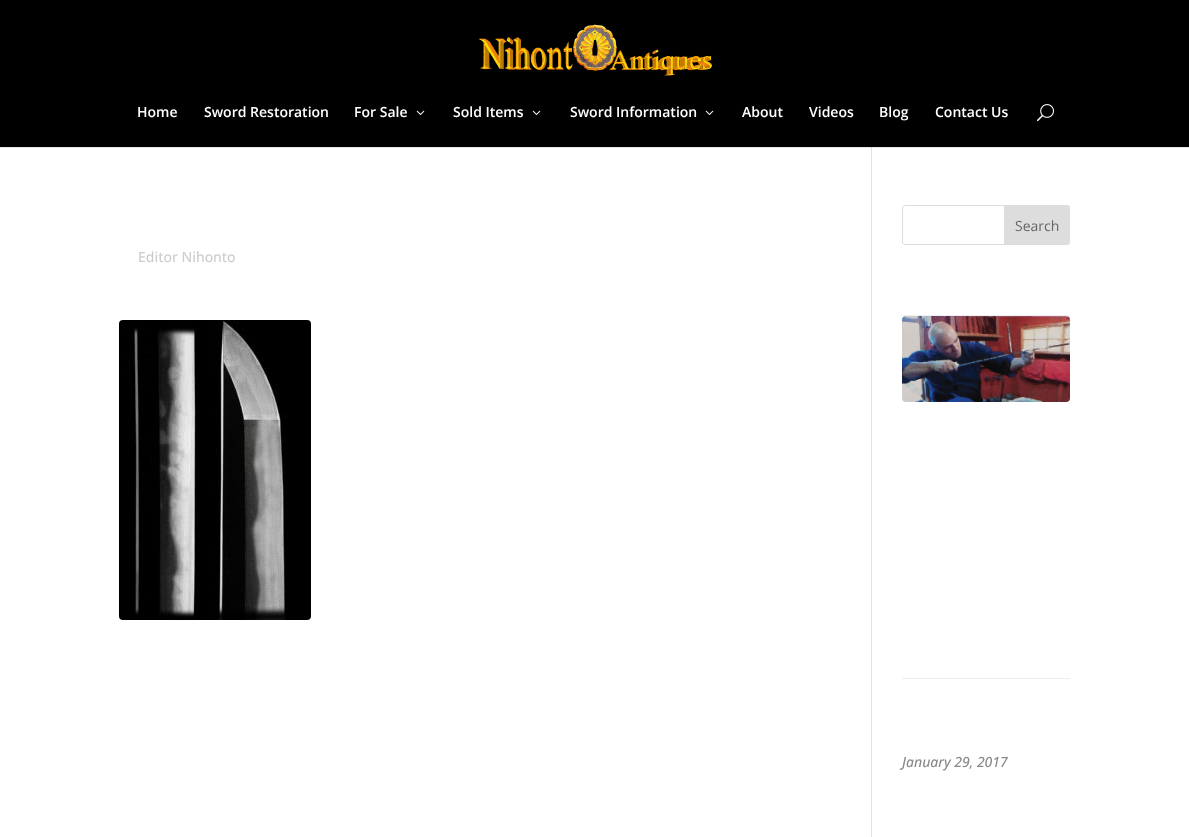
<svg xmlns="http://www.w3.org/2000/svg" width="1189" height="837">
<rect width="100%" height="100%" fill="#000"/>
<image x="479" y="24" width="233" height="52" href="media/1.png"/>
<text x="137" y="117" style="font-family:Open Sans;font-size:14px;font-weight:600;fill:#fff">Home</text>
<text x="204" y="117" style="font-family:Open Sans;font-size:14px;font-weight:600;fill:#fff">Sword Restoration</text>
<text x="354" y="117" style="font-family:Open Sans;font-size:14px;font-weight:600;fill:#fff">For Sale</text>
<image x="416" y="110" width="9" height="5" href="media/2.png"/>
<text x="453" y="117" style="font-family:Open Sans;font-size:14px;font-weight:600;fill:#fff">Sold Items</text>
<image x="532" y="110" width="9" height="5" href="media/2.png"/>
<text x="570" y="117" style="font-family:Open Sans;font-size:14px;font-weight:600;fill:#fff">Sword Information</text>
<image x="705" y="110" width="9" height="5" href="media/2.png"/>
<text x="742" y="117" style="font-family:Open Sans;font-size:14px;font-weight:600;fill:#fff">About</text>
<text x="809" y="117" style="font-family:Open Sans;font-size:14px;font-weight:600;fill:#fff">Videos</text>
<text x="879" y="117" style="font-family:Open Sans;font-size:14px;font-weight:600;fill:#fff">Blog</text>
<text x="935" y="117" style="font-family:Open Sans;font-size:14px;font-weight:600;fill:#fff">Contact Us</text>
<image x="1037" y="104" width="17" height="18" href="media/3.png"/>
<rect y="148" width="1189" height="689" fill="#fff"/>
<rect y="147" width="1189" height="1" fill="#e6e6e6"/>
<rect x="871" y="147" width="1" height="690" fill="#e2e2e2"/>
<rect x="871" y="147" width="1" height="1" fill="#cbcbcb"/>
<text x="138" y="262" style="font-family:Open Sans;font-size:14px;font-weight:500;fill:#ccc">Editor Nihonto</text>
<image x="119" y="320" width="192" height="300" href="media/4.png"/>
<rect x="902.5" y="205.5" width="167" height="39" rx="2.5" fill="none" stroke="#ddd"/>
<path d="M1004.5 205.5h62.5c1.5 0 2.5 1 2.5 2.5v34c0 1.5-1 2.5-2.5 2.5h-62.5z" fill="#ddd" stroke="#ddd"/>
<text x="1015" y="231" style="font-family:Open Sans;font-size:14px;fill:#666">Search</text>
<rect x="902" y="315" width="168" height="1" fill="#eee"/>
<image x="902" y="316" width="168" height="86" href="media/5.png"/>
<rect x="902" y="678" width="168" height="1" fill="#eee"/>
<text x="902" y="767" style="font-family:Open Sans;font-size:14px;font-weight:500;font-style:italic;fill:#888">January 29, 2017</text>
</svg>
